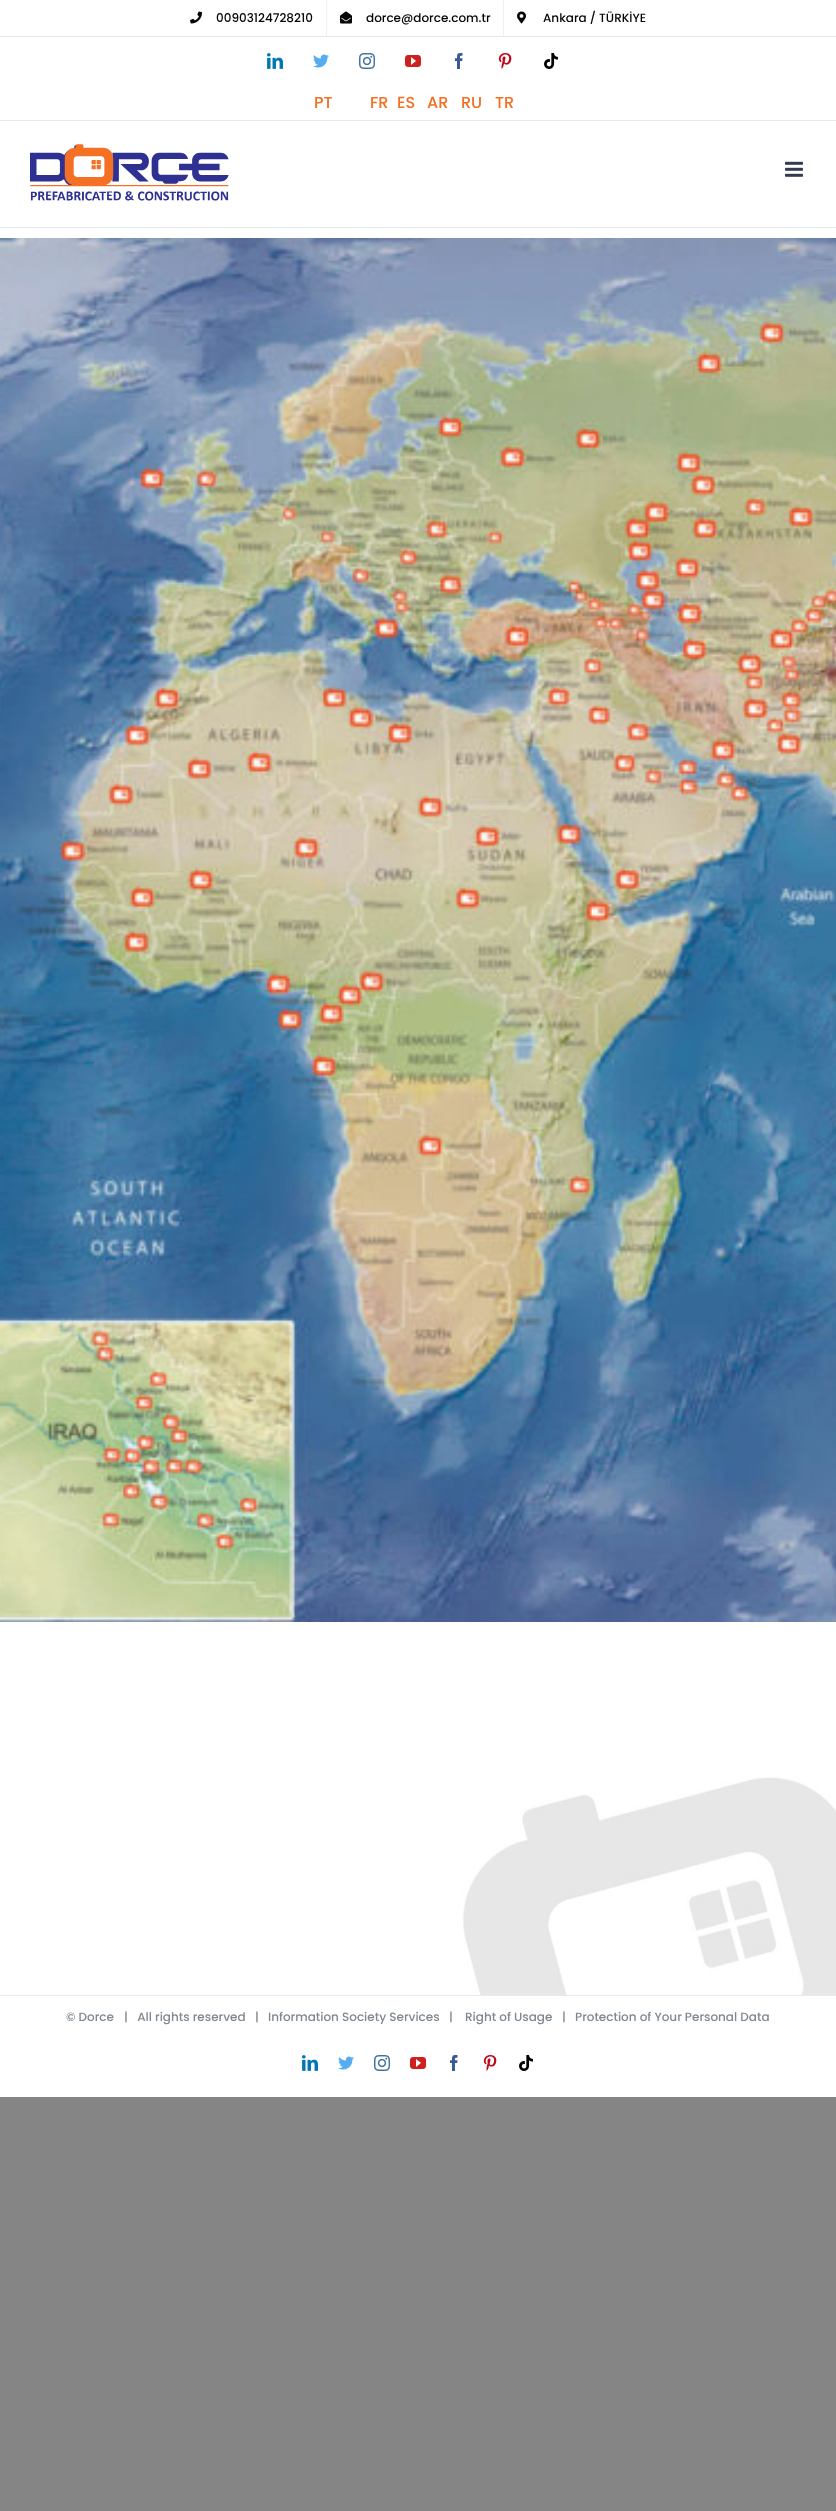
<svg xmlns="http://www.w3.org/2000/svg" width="836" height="2511">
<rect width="100%" height="100%" fill="#858585"/>
<rect width="836" height="2097" fill="#fff"/>
<rect y="120" width="836" height="1" fill="#e6eaec"/>
<rect y="36" width="836" height="1" fill="#e6eaec"/>
<image x="190" y="11" width="12" height="13" href="media/1.png"/>
<text x="216" y="22" style="font-family:Poppins;font-size:12px;font-weight:500;fill:#060606">00903124728210</text>
<rect x="326" width="1" height="36" fill="#f0f0f0"/>
<image x="340" y="11" width="12" height="13" href="media/2.png"/>
<text x="366" y="22" style="font-family:Poppins;font-size:12px;font-weight:500;fill:#060606">dorce@dorce.com.tr</text>
<rect x="503" width="1" height="36" fill="#f0f0f0"/>
<image x="517" y="11" width="9" height="13" href="media/3.png"/>
<text x="543" y="22" style="font-family:Poppins;font-size:12px;font-weight:500;fill:#060606">Ankara / TÜRKİYE</text>
<image x="267" y="53" width="16" height="16" href="media/4.png"/>
<image x="313" y="54" width="16" height="14" href="media/5.png"/>
<image x="359" y="53" width="16" height="16" href="media/6.png"/>
<image x="405" y="55" width="16" height="12" href="media/7.png"/>
<image x="455" y="53" width="8" height="16" href="media/8.png"/>
<image x="498" y="53" width="14" height="16" href="media/9.png"/>
<image x="544" y="53" width="14" height="16" href="media/10.png"/>
<text x="314" y="108" style="font-family:Poppins;font-size:16px;font-weight:500;fill:#f37024">PT</text>
<text x="370" y="108" style="font-family:Poppins;font-size:16px;font-weight:500;fill:#f37024">FR</text>
<text x="397" y="108" style="font-family:Poppins;font-size:16px;font-weight:500;fill:#f37024">ES</text>
<text x="427" y="108" style="font-family:Poppins;font-size:16px;font-weight:500;fill:#f37024">AR</text>
<text x="461" y="108" style="font-family:Poppins;font-size:16px;font-weight:500;fill:#f37024">RU</text>
<text x="495" y="108" style="font-family:Poppins;font-size:16px;font-weight:500;fill:#f37024">TR</text>
<rect y="227" width="836" height="1" fill="#e6eaec"/>
<image x="30" y="144" width="199" height="57" href="media/11.png"/>
<image x="785" y="161" width="18" height="16" href="media/12.png"/>
<image x="0" y="238" width="836" height="1384" href="media/13.png"/>
<image x="0" y="1712" width="836" height="283" href="media/14.png"/>
<rect y="1995" width="836" height="1" fill="#e9eaee"/>
<text x="66" y="2021" style="font-family:Poppins;font-size:12px;font-weight:500;fill:#7e8890">© Dorce</text>
<text x="124" y="2021" style="font-family:Poppins;font-size:12px;font-weight:500;fill:#7e8890" xml:space="preserve">|   All rights reserved   |</text>
<text x="268" y="2021" style="font-family:Poppins;font-size:12px;font-weight:500;fill:#7e8890">Information Society Services</text>
<text x="449" y="2021" style="font-family:Poppins;font-size:12px;font-weight:500;fill:#7e8890">|</text>
<text x="465" y="2021" style="font-family:Poppins;font-size:12px;font-weight:500;fill:#7e8890">Right of Usage</text>
<text x="562" y="2021" style="font-family:Poppins;font-size:12px;font-weight:500;fill:#7e8890">|</text>
<text x="575" y="2021" style="font-family:Poppins;font-size:12px;font-weight:500;fill:#7e8890">Protection of Your Personal Data</text>
<image x="302" y="2055" width="16" height="16" href="media/4.png"/>
<image x="338" y="2056" width="16" height="14" href="media/5.png"/>
<image x="374" y="2055" width="16" height="16" href="media/6.png"/>
<image x="410" y="2057" width="16" height="12" href="media/7.png"/>
<image x="450" y="2055" width="8" height="16" href="media/8.png"/>
<image x="483" y="2055" width="14" height="16" href="media/9.png"/>
<image x="519" y="2055" width="14" height="16" href="media/10.png"/>
</svg>
